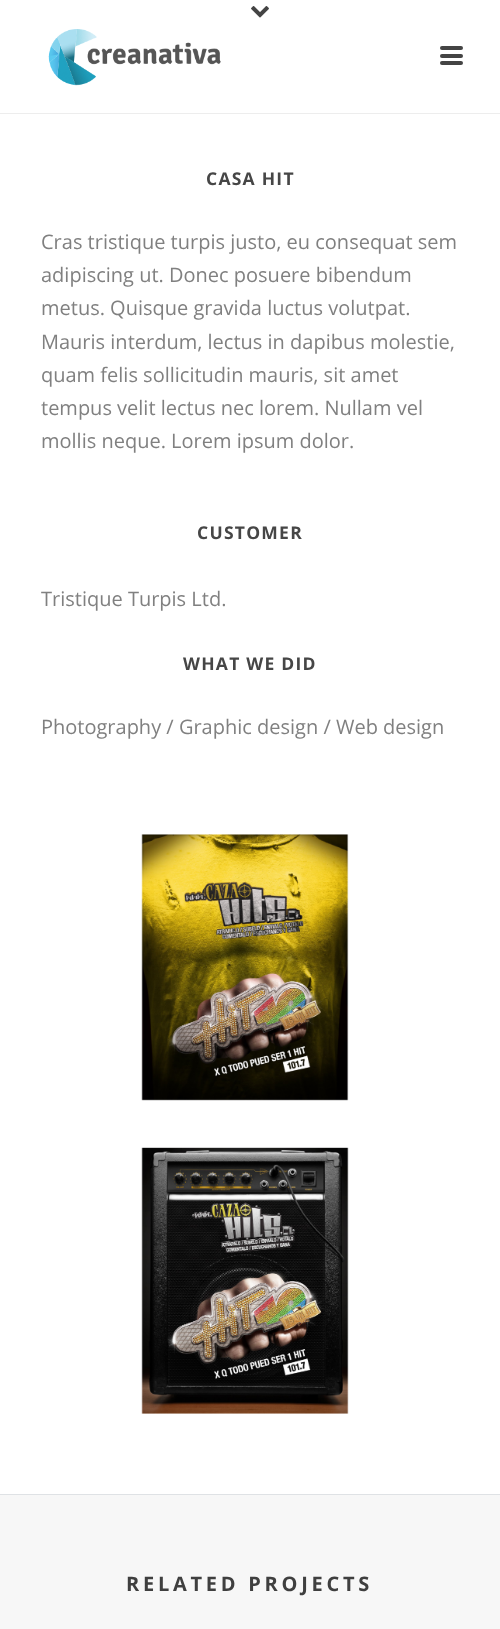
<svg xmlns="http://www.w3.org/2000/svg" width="500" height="1629">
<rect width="100%" height="100%" fill="#fff"/>
<rect y="113" width="500" height="1" fill="#ededed"/>
<image x="251" y="6" width="18" height="12" href="media/1.png"/>
<image x="48" y="29" width="173" height="57" href="media/2.png"/>
<rect x="440" y="46" width="23" height="4" rx="2" fill="#444"/>
<rect x="440" y="54" width="23" height="4" rx="2" fill="#444"/>
<rect x="440" y="61" width="23" height="4" rx="2" fill="#444"/>
<text x="206" y="185" style="font-family:Open Sans;font-size:17.5px;font-weight:bold;letter-spacing:1.25px;fill:#464646">CASA HIT</text>
<text x="41" y="249" style="font-family:Open Sans;font-size:20px;fill:#808080">Cras tristique turpis justo, eu consequat sem</text>
<text x="41" y="282" style="font-family:Open Sans;font-size:20px;fill:#808080">adipiscing ut. Donec posuere bibendum</text>
<text x="41" y="315" style="font-family:Open Sans;font-size:20px;fill:#808080">metus. Quisque gravida luctus volutpat.</text>
<text x="41" y="349" style="font-family:Open Sans;font-size:20px;fill:#808080">Mauris interdum, lectus in dapibus molestie,</text>
<text x="41" y="382" style="font-family:Open Sans;font-size:20px;fill:#808080">quam felis sollicitudin mauris, sit amet</text>
<text x="41" y="415" style="font-family:Open Sans;font-size:20px;fill:#808080">tempus velit lectus nec lorem. Nullam vel</text>
<text x="41" y="448" style="font-family:Open Sans;font-size:20px;fill:#808080">mollis neque. Lorem ipsum dolor.</text>
<text x="197" y="539" style="font-family:Open Sans;font-size:17.5px;font-weight:bold;letter-spacing:1.25px;fill:#464646">CUSTOMER</text>
<text x="41" y="606" style="font-family:Open Sans;font-size:20px;fill:#808080">Tristique Turpis Ltd.</text>
<text x="183" y="670" style="font-family:Open Sans;font-size:17.5px;font-weight:bold;letter-spacing:1.25px;fill:#464646">WHAT WE DID</text>
<text x="41" y="734" style="font-family:Open Sans;font-size:20px;fill:#808080">Photography / Graphic design / Web design</text>
<image x="141" y="834" width="208" height="267" href="media/3.png"/>
<image x="141" y="1147" width="208" height="267" href="media/4.png"/>
<rect y="1495" width="500" height="134" fill="#f7f7f7"/>
<rect y="1494" width="500" height="1" fill="#dfe2e5"/>
<text x="126" y="1591" style="font-family:Open Sans;font-size:20px;font-weight:bold;letter-spacing:3.75px;fill:#3f3f3f">RELATED PROJECTS</text>
</svg>
